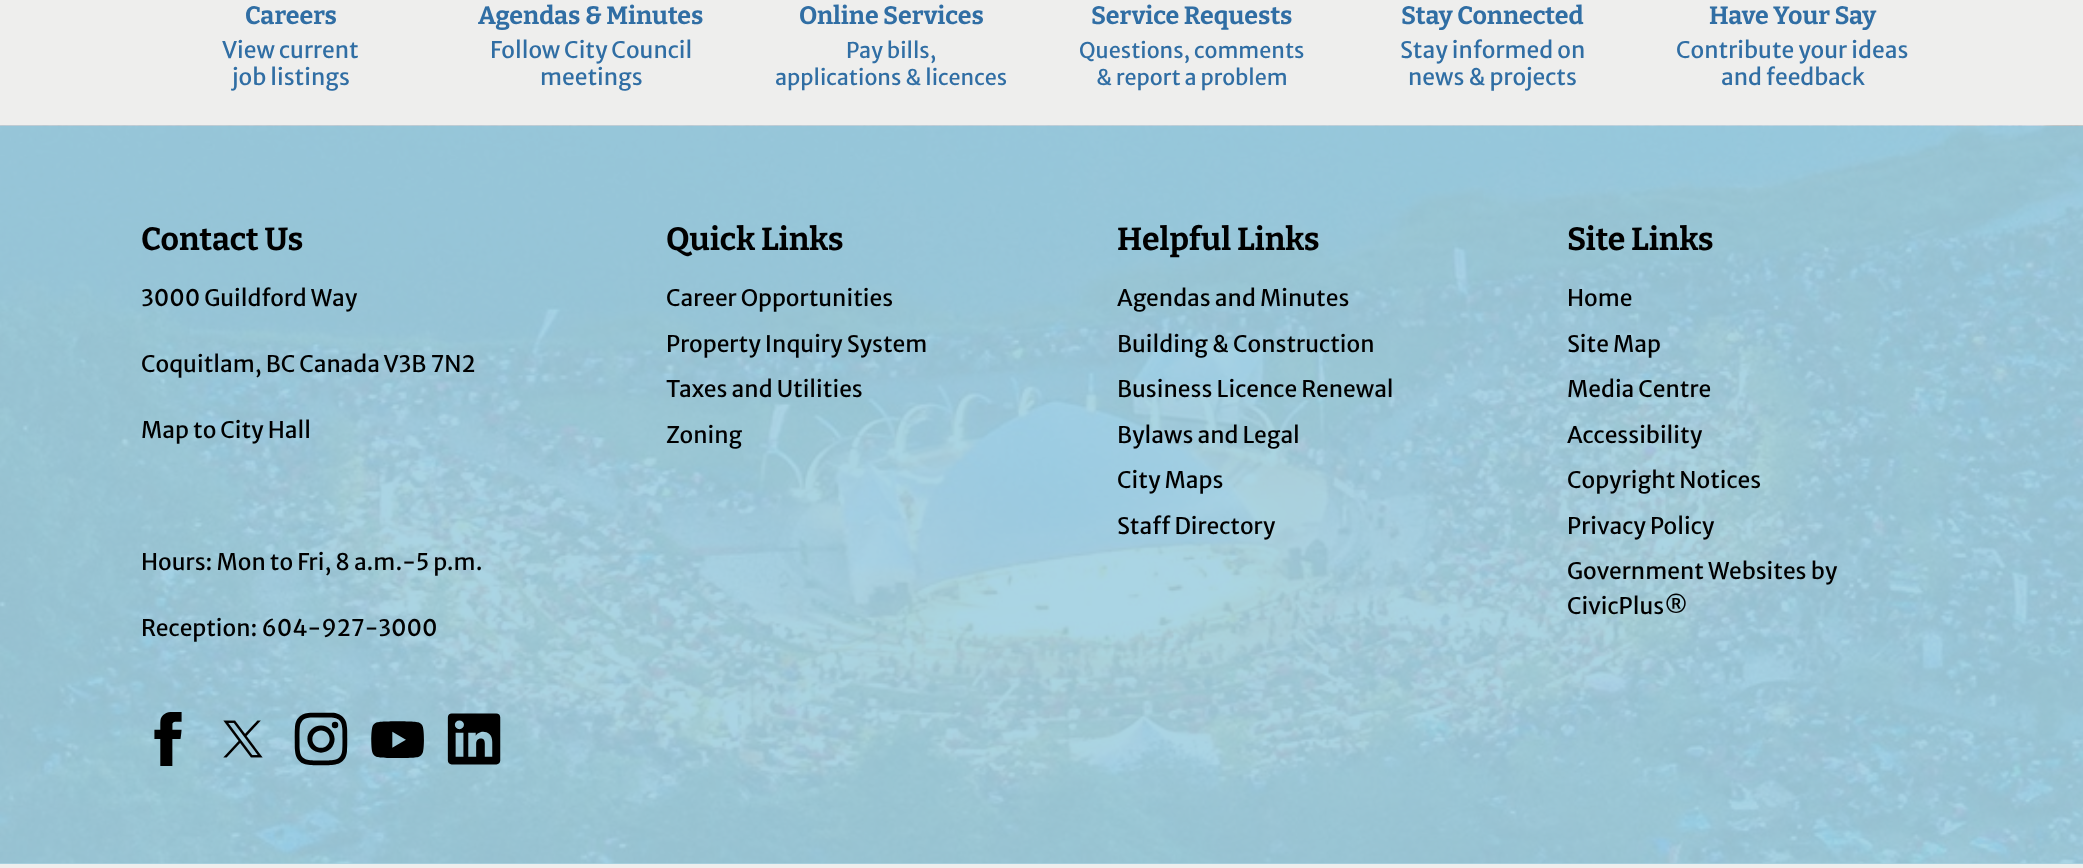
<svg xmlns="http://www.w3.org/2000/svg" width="2083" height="868">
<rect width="100%" height="100%" fill="#eeeeed"/>
<rect y="863" width="2083" height="1" fill="#a9d3e2"/>
<text x="245" y="24" style="font-family:Bitter;font-size:25px;font-weight:bold;fill:#306ea4">Careers</text>
<text x="222" y="58" style="font-family:Merriweather Sans;font-size:22.75px;fill:#306ea4">View current</text>
<text x="232" y="85" style="font-family:Merriweather Sans;font-size:22.75px;fill:#306ea4">job listings</text>
<text x="478" y="24" style="font-family:Bitter;font-size:25px;font-weight:bold;fill:#306ea4">Agendas &amp; Minutes</text>
<text x="490" y="58" style="font-family:Merriweather Sans;font-size:22.75px;fill:#306ea4">Follow City Council</text>
<text x="540" y="85" style="font-family:Merriweather Sans;font-size:22.75px;fill:#306ea4">meetings</text>
<text x="799" y="24" style="font-family:Bitter;font-size:25px;font-weight:bold;fill:#306ea4">Online Services</text>
<text x="846" y="58" style="font-family:Merriweather Sans;font-size:21.6px;fill:#306ea4">Pay bills,</text>
<text x="775" y="85" style="font-family:Merriweather Sans;font-size:21.6px;fill:#306ea4">applications &amp; licences</text>
<text x="1091" y="24" style="font-family:Bitter;font-size:25px;font-weight:bold;fill:#306ea4">Service Requests</text>
<text x="1079" y="58" style="font-family:Merriweather Sans;font-size:21.6px;fill:#306ea4">Questions, comments</text>
<text x="1096" y="85" style="font-family:Merriweather Sans;font-size:21.6px;fill:#306ea4">&amp; report a problem</text>
<text x="1401" y="24" style="font-family:Bitter;font-size:25px;font-weight:bold;fill:#306ea4">Stay Connected</text>
<text x="1400" y="58" style="font-family:Merriweather Sans;font-size:22.75px;fill:#306ea4">Stay informed on</text>
<text x="1408" y="85" style="font-family:Merriweather Sans;font-size:22.75px;fill:#306ea4">news &amp; projects</text>
<text x="1709" y="24" style="font-family:Bitter;font-size:25px;font-weight:bold;fill:#306ea4">Have Your Say</text>
<text x="1676" y="58" style="font-family:Merriweather Sans;font-size:22.75px;fill:#306ea4">Contribute your ideas</text>
<text x="1721" y="85" style="font-family:Merriweather Sans;font-size:22.75px;fill:#306ea4">and feedback</text>
<image x="0" y="125" width="2083" height="739" href="media/1.png"/>
<text x="141" y="250" style="font-family:Bitter;font-size:32px;font-weight:bold;fill:#000">Contact Us</text>
<text x="141" y="306" style="font-family:Merriweather Sans;font-size:22.75px;fill:#000">3000 Guildford Way</text>
<text x="141" y="372" style="font-family:Merriweather Sans;font-size:22.75px;fill:#000">Coquitlam, BC Canada V3B 7N2</text>
<text x="141" y="438" style="font-family:Merriweather Sans;font-size:22.75px;fill:#000">Map to City Hall</text>
<text x="141" y="570" style="font-family:Merriweather Sans;font-size:22.75px;fill:#000">Hours: Mon to Fri, 8 a.m.-5 p.m.</text>
<text x="141" y="636" style="font-family:Merriweather Sans;font-size:22.75px;fill:#000">Reception: 604-927-3000</text>
<image x="154" y="712" width="28" height="54" href="media/2.png"/>
<image x="223" y="720" width="40" height="38" href="media/3.png"/>
<image x="294" y="712" width="54" height="54" href="media/4.png"/>
<image x="371" y="721" width="53" height="37" href="media/5.png"/>
<image x="447" y="713" width="54" height="52" href="media/6.png"/>
<text x="666" y="250" style="font-family:Bitter;font-size:32px;font-weight:bold;fill:#000">Quick Links</text>
<text x="666" y="306" style="font-family:Merriweather Sans;font-size:22.75px;fill:#000">Career Opportunities</text>
<text x="666" y="352" style="font-family:Merriweather Sans;font-size:22.75px;fill:#000">Property Inquiry System</text>
<text x="666" y="397" style="font-family:Merriweather Sans;font-size:22.75px;fill:#000">Taxes and Utilities</text>
<text x="666" y="443" style="font-family:Merriweather Sans;font-size:22.75px;fill:#000">Zoning</text>
<text x="1117" y="250" style="font-family:Bitter;font-size:32px;font-weight:bold;fill:#000">Helpful Links</text>
<text x="1117" y="306" style="font-family:Merriweather Sans;font-size:22.75px;fill:#000">Agendas and Minutes</text>
<text x="1117" y="352" style="font-family:Merriweather Sans;font-size:22.75px;fill:#000">Building &amp; Construction</text>
<text x="1117" y="397" style="font-family:Merriweather Sans;font-size:22.75px;fill:#000">Business Licence Renewal</text>
<text x="1117" y="443" style="font-family:Merriweather Sans;font-size:22.75px;fill:#000">Bylaws and Legal</text>
<text x="1117" y="488" style="font-family:Merriweather Sans;font-size:22.75px;fill:#000">City Maps</text>
<text x="1117" y="534" style="font-family:Merriweather Sans;font-size:22.75px;fill:#000">Staff Directory</text>
<text x="1567" y="250" style="font-family:Bitter;font-size:32px;font-weight:bold;fill:#000">Site Links</text>
<text x="1567" y="306" style="font-family:Merriweather Sans;font-size:22.75px;fill:#000">Home</text>
<text x="1567" y="352" style="font-family:Merriweather Sans;font-size:22.75px;fill:#000">Site Map</text>
<text x="1567" y="397" style="font-family:Merriweather Sans;font-size:22.75px;fill:#000">Media Centre</text>
<text x="1567" y="443" style="font-family:Merriweather Sans;font-size:22.75px;fill:#000">Accessibility</text>
<text x="1567" y="488" style="font-family:Merriweather Sans;font-size:22.75px;fill:#000">Copyright Notices</text>
<text x="1567" y="534" style="font-family:Merriweather Sans;font-size:22.75px;fill:#000">Privacy Policy</text>
<text x="1567" y="579" style="font-family:Merriweather Sans;font-size:22.75px;fill:#000">Government Websites by</text>
<text x="1567" y="614" style="font-family:Merriweather Sans;font-size:22.75px;fill:#000">CivicPlus®</text>
</svg>
